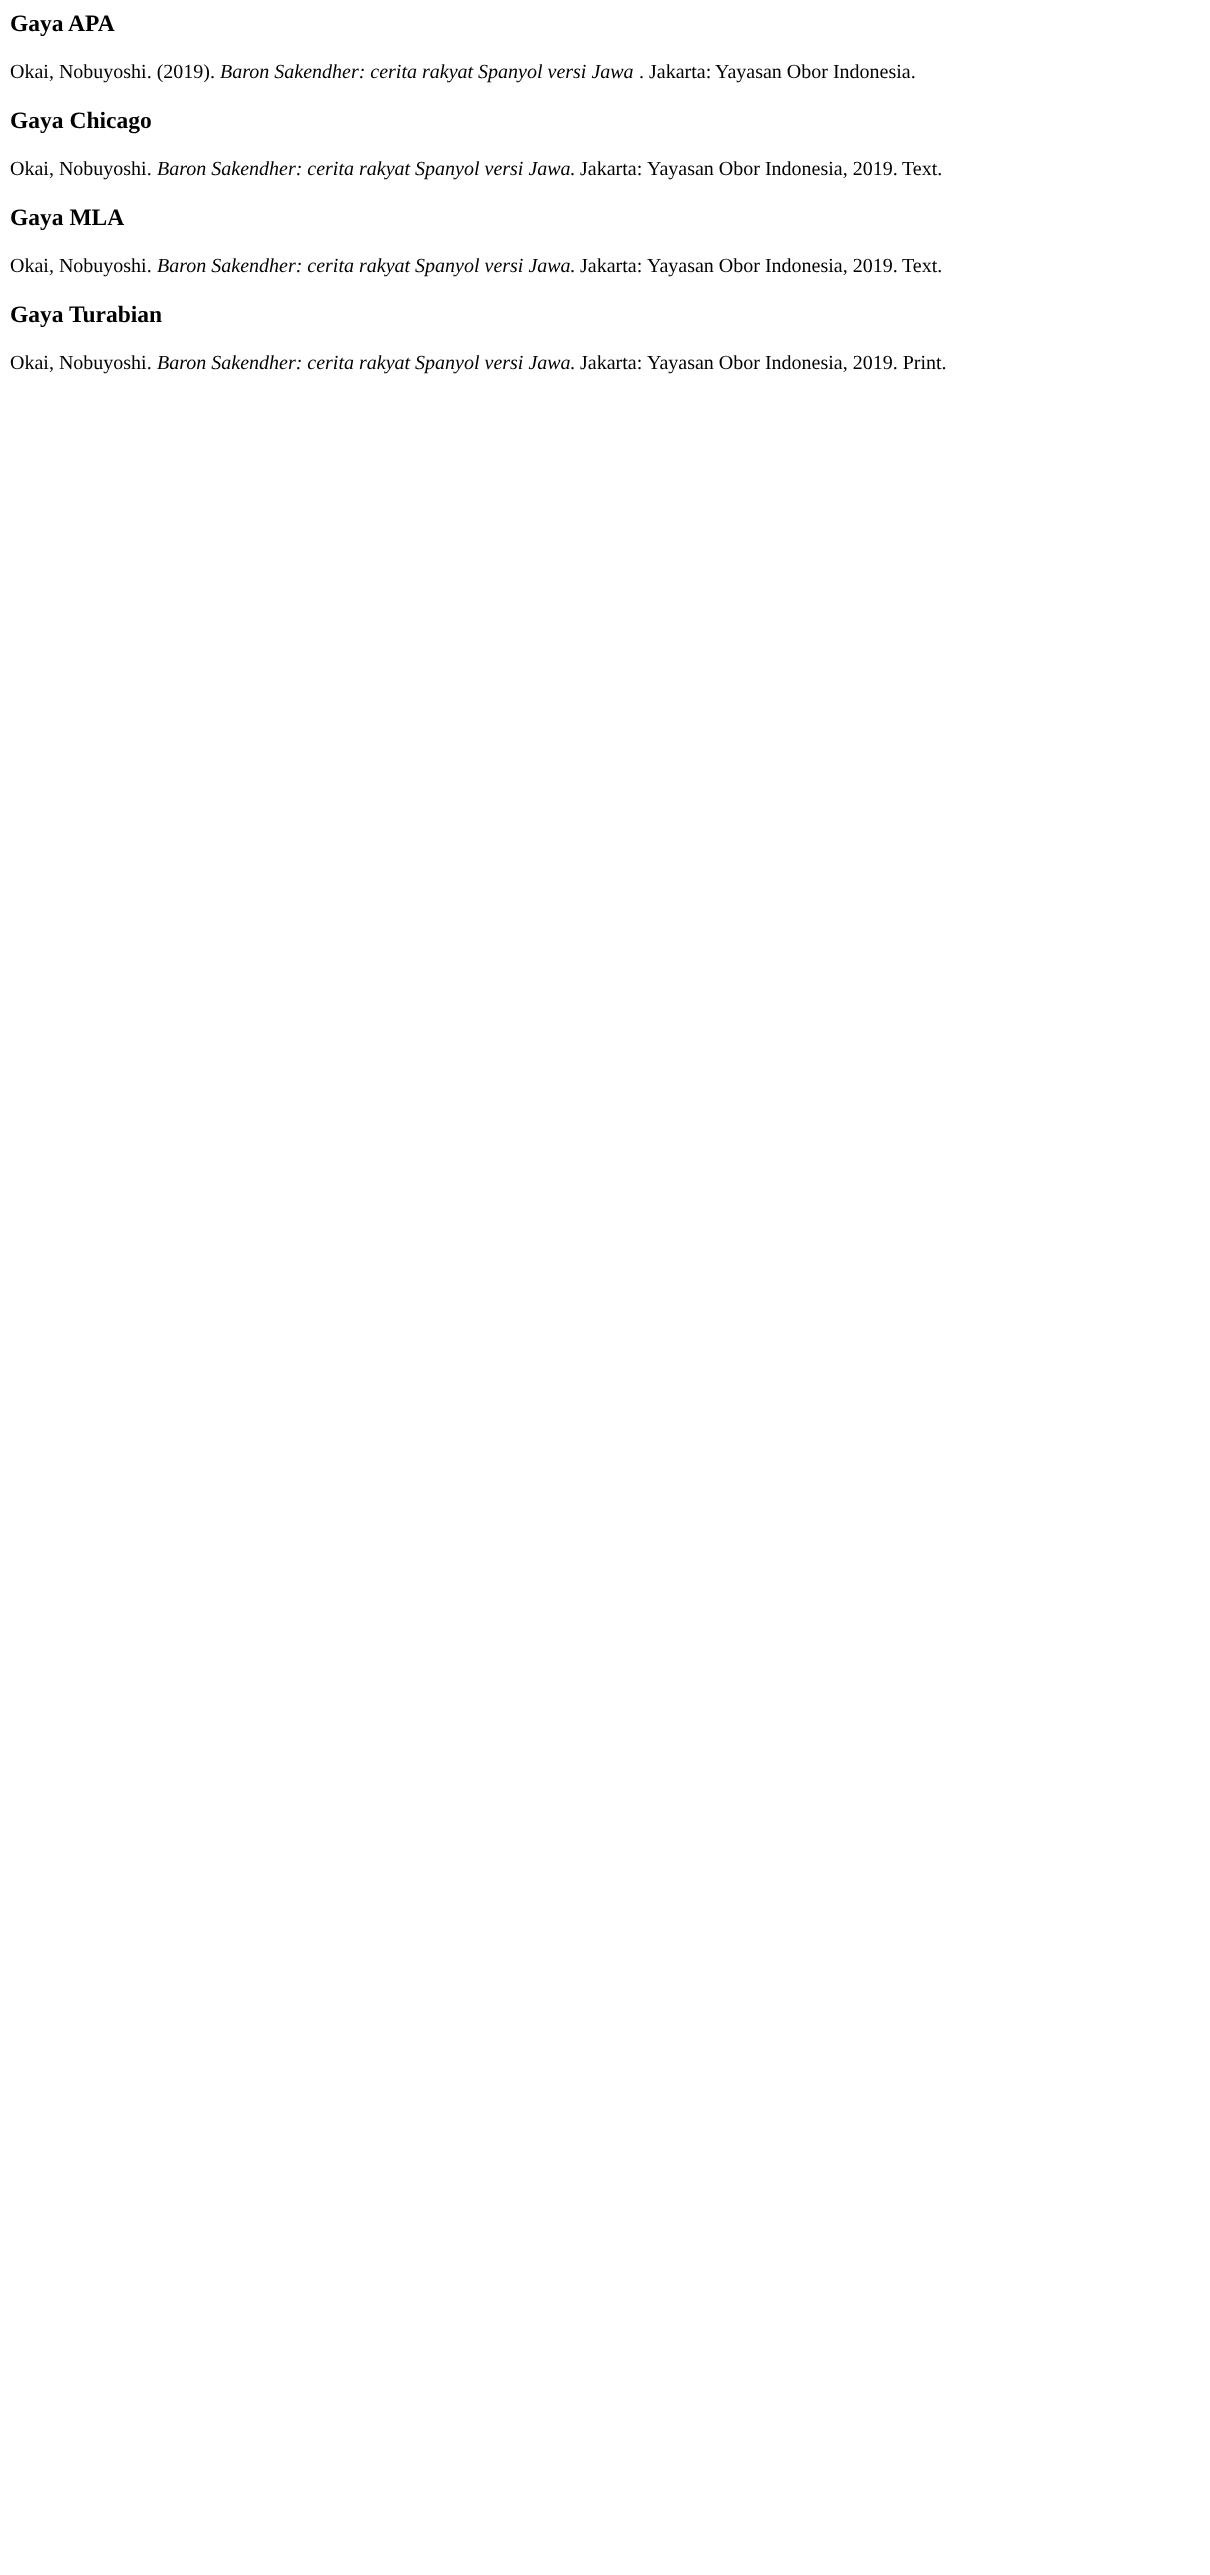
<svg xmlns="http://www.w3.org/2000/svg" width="1210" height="2575">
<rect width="100%" height="100%" fill="#fff"/>
<text x="10" y="31" style="font-family:Liberation Serif;font-size:23.5px;font-weight:bold;fill:#000">Gaya APA</text>
<text x="10" y="78" style="font-family:Liberation Serif;font-size:20px;fill:#000">Okai, Nobuyoshi. (2019).</text>
<text x="220" y="78" style="font-family:Liberation Serif;font-size:20px;font-style:italic;fill:#000">Baron Sakendher: cerita rakyat Spanyol versi Jawa</text>
<text x="639" y="78" style="font-family:Liberation Serif;font-size:20px;fill:#000">. Jakarta:</text>
<text x="715" y="78" style="font-family:Liberation Serif;font-size:20px;fill:#000">Yayasan Obor Indonesia.</text>
<text x="10" y="128" style="font-family:Liberation Serif;font-size:23.5px;font-weight:bold;fill:#000">Gaya Chicago</text>
<text x="10" y="175" style="font-family:Liberation Serif;font-size:20px;fill:#000">Okai, Nobuyoshi.</text>
<text x="157" y="175" style="font-family:Liberation Serif;font-size:20px;font-style:italic;fill:#000">Baron Sakendher: cerita rakyat Spanyol versi Jawa</text>
<text x="570" y="175" style="font-family:Liberation Serif;font-size:20px;fill:#000">. Jakarta:</text>
<text x="647" y="175" style="font-family:Liberation Serif;font-size:20px;fill:#000">Yayasan Obor Indonesia, 2019.</text>
<text x="902" y="175" style="font-family:Liberation Serif;font-size:20px;fill:#000">Text.</text>
<text x="10" y="225" style="font-family:Liberation Serif;font-size:23.5px;font-weight:bold;fill:#000">Gaya MLA</text>
<text x="10" y="272" style="font-family:Liberation Serif;font-size:20px;fill:#000">Okai, Nobuyoshi.</text>
<text x="157" y="272" style="font-family:Liberation Serif;font-size:20px;font-style:italic;fill:#000">Baron Sakendher: cerita rakyat Spanyol versi Jawa</text>
<text x="570" y="272" style="font-family:Liberation Serif;font-size:20px;fill:#000">. Jakarta:</text>
<text x="647" y="272" style="font-family:Liberation Serif;font-size:20px;fill:#000">Yayasan Obor Indonesia, 2019.</text>
<text x="902" y="272" style="font-family:Liberation Serif;font-size:20px;fill:#000">Text.</text>
<text x="10" y="322" style="font-family:Liberation Serif;font-size:23.5px;font-weight:bold;fill:#000">Gaya Turabian</text>
<text x="10" y="369" style="font-family:Liberation Serif;font-size:20px;fill:#000">Okai, Nobuyoshi.</text>
<text x="157" y="369" style="font-family:Liberation Serif;font-size:20px;font-style:italic;fill:#000">Baron Sakendher: cerita rakyat Spanyol versi Jawa</text>
<text x="570" y="369" style="font-family:Liberation Serif;font-size:20px;fill:#000">. Jakarta:</text>
<text x="647" y="369" style="font-family:Liberation Serif;font-size:20px;fill:#000">Yayasan Obor Indonesia, 2019. Print.</text>
</svg>
